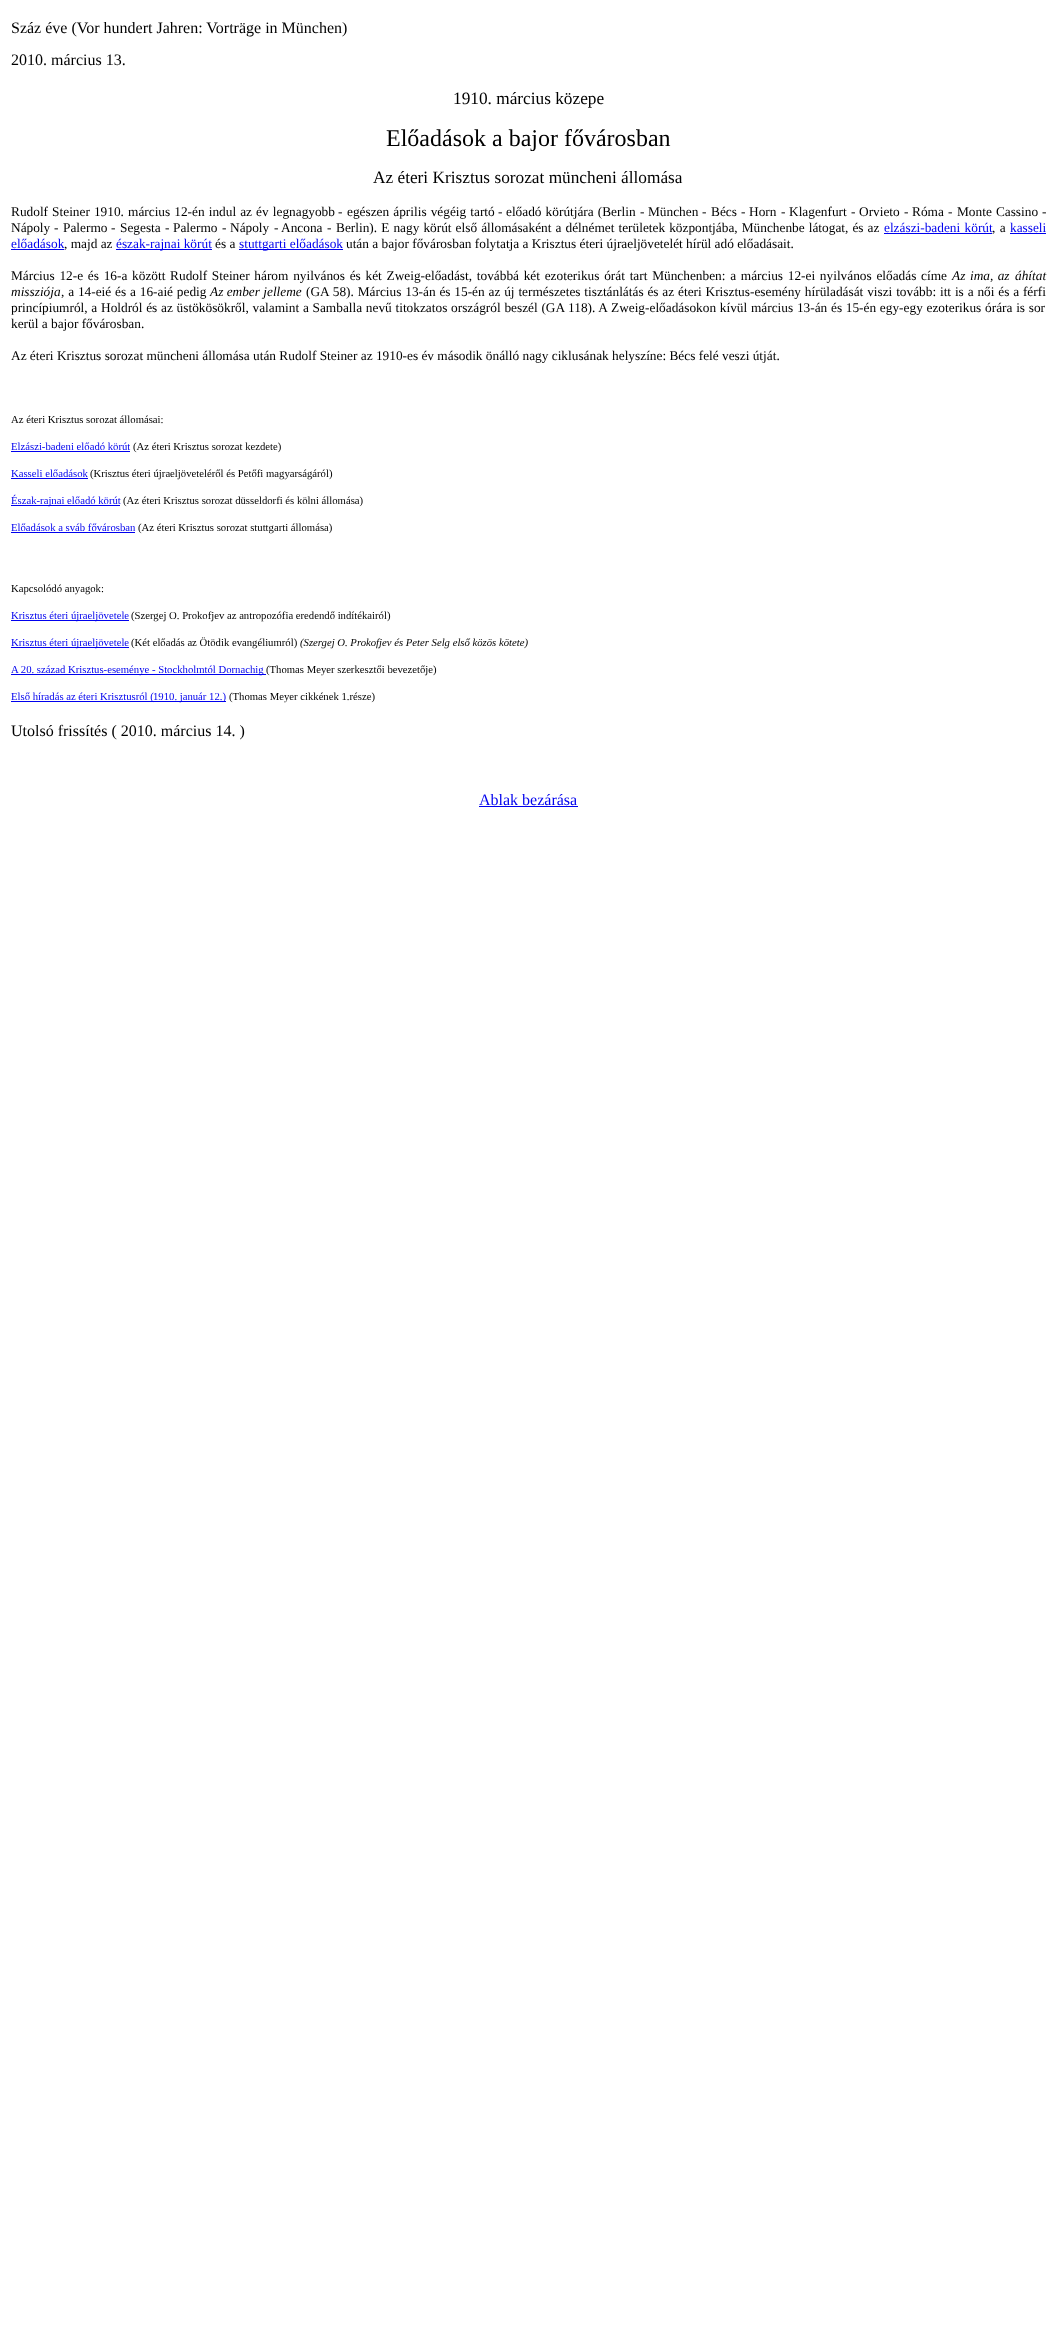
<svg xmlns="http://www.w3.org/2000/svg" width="1057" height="2330">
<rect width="100%" height="100%" fill="#fff"/>
<text x="11" y="33" style="font-family:Liberation Serif;font-size:16px;fill:#000">Száz éve (Vor hundert Jahren: Vorträge in München)</text>
<text x="11" y="65" style="font-family:Liberation Serif;font-size:16px;fill:#000">2010. március 13.</text>
<text x="453" y="104" style="font-family:Liberation Serif;font-size:17.3px;fill:#000">1910. március közepe</text>
<text x="386" y="146" style="font-family:Liberation Serif;font-size:24px;fill:#000">Előadások a bajor fővárosban</text>
<text x="373" y="183" style="font-family:Liberation Serif;font-size:17.3px;fill:#000">Az éteri Krisztus sorozat müncheni állomása</text>
<text x="11" y="216" word-spacing="0.75" style="font-family:Liberation Serif;font-size:13.33px;fill:#000">Rudolf Steiner 1910. március 12-én indul az év legnagyobb</text>
<text x="338" y="216" style="font-family:Liberation Serif;font-size:13.33px;fill:#000">-</text>
<text x="347" y="216" word-spacing="0.75" style="font-family:Liberation Serif;font-size:13.33px;fill:#000">egészen április végéig tartó</text>
<text x="498" y="216" style="font-family:Liberation Serif;font-size:13.33px;fill:#000">-</text>
<text x="506" y="216" word-spacing="0.75" style="font-family:Liberation Serif;font-size:13.33px;fill:#000">előadó körútjára (Berlin</text>
<text x="640" y="216" style="font-family:Liberation Serif;font-size:13.33px;fill:#000">-</text>
<text x="648" y="216" style="font-family:Liberation Serif;font-size:13.33px;fill:#000">München</text>
<text x="702" y="216" style="font-family:Liberation Serif;font-size:13.33px;fill:#000">-</text>
<text x="711" y="216" style="font-family:Liberation Serif;font-size:13.33px;fill:#000">Bécs</text>
<text x="741" y="216" style="font-family:Liberation Serif;font-size:13.33px;fill:#000">-</text>
<text x="749" y="216" style="font-family:Liberation Serif;font-size:13.33px;fill:#000">Horn</text>
<text x="781" y="216" style="font-family:Liberation Serif;font-size:13.33px;fill:#000">-</text>
<text x="789" y="216" style="font-family:Liberation Serif;font-size:13.33px;fill:#000">Klagenfurt</text>
<text x="851" y="216" style="font-family:Liberation Serif;font-size:13.33px;fill:#000">-</text>
<text x="859" y="216" style="font-family:Liberation Serif;font-size:13.33px;fill:#000">Orvieto</text>
<text x="904" y="216" style="font-family:Liberation Serif;font-size:13.33px;fill:#000">-</text>
<text x="912" y="216" style="font-family:Liberation Serif;font-size:13.33px;fill:#000">Róma</text>
<text x="948" y="216" style="font-family:Liberation Serif;font-size:13.33px;fill:#000">-</text>
<text x="957" y="216" word-spacing="0.75" style="font-family:Liberation Serif;font-size:13.33px;fill:#000">Monte Cassino</text>
<text x="1042" y="216" style="font-family:Liberation Serif;font-size:13.33px;fill:#000">-</text>
<text x="11" y="232" style="font-family:Liberation Serif;font-size:13.33px;fill:#000">Nápoly</text>
<text x="54" y="232" style="font-family:Liberation Serif;font-size:13.33px;fill:#000">-</text>
<text x="63" y="232" style="font-family:Liberation Serif;font-size:13.33px;fill:#000">Palermo</text>
<text x="111" y="232" style="font-family:Liberation Serif;font-size:13.33px;fill:#000">-</text>
<text x="120" y="232" style="font-family:Liberation Serif;font-size:13.33px;fill:#000">Segesta</text>
<text x="165" y="232" style="font-family:Liberation Serif;font-size:13.33px;fill:#000">-</text>
<text x="173" y="232" style="font-family:Liberation Serif;font-size:13.33px;fill:#000">Palermo</text>
<text x="222" y="232" style="font-family:Liberation Serif;font-size:13.33px;fill:#000">-</text>
<text x="230" y="232" style="font-family:Liberation Serif;font-size:13.33px;fill:#000">Nápoly</text>
<text x="274" y="232" style="font-family:Liberation Serif;font-size:13.33px;fill:#000">- Ancona</text>
<text x="327" y="232" style="font-family:Liberation Serif;font-size:13.33px;fill:#000">-</text>
<text x="336" y="232" word-spacing="0.75" style="font-family:Liberation Serif;font-size:13.33px;fill:#000">Berlin). E nagy körút első állomásaként a délnémet területek központjába, Münchenbe látogat, és az</text>
<text x="884" y="232" word-spacing="1" style="font-family:Liberation Serif;font-size:13.33px;fill:#00e">elzászi-badeni körút</text>
<text x="992" y="232" word-spacing="1" style="font-family:Liberation Serif;font-size:13.33px;fill:#000">, a</text>
<rect x="884" y="233" width="108" height="1" fill="#00e"/>
<rect x="1010" y="233" width="36" height="1" fill="#00e"/>
<text x="1010" y="232" style="font-family:Liberation Serif;font-size:13.33px;fill:#00e">kasseli</text>
<text x="11" y="248" style="font-family:Liberation Serif;font-size:13.33px;fill:#00e">előadások</text>
<text x="64" y="248" style="font-family:Liberation Serif;font-size:13.33px;fill:#000">, majd az</text>
<rect x="11" y="249" width="53" height="1" fill="#00e"/>
<rect x="116" y="249" width="96" height="1" fill="#00e"/>
<text x="116" y="248" style="font-family:Liberation Serif;font-size:13.33px;fill:#00e">észak-rajnai körút</text>
<text x="215" y="248" style="font-family:Liberation Serif;font-size:13.33px;fill:#000">és a</text>
<rect x="239" y="249" width="104" height="1" fill="#00e"/>
<text x="239" y="248" style="font-family:Liberation Serif;font-size:13.33px;fill:#00e">stuttgarti előadások</text>
<text x="346" y="248" style="font-family:Liberation Serif;font-size:13.33px;fill:#000">után a bajor fővárosban folytatja a Krisztus éteri újraeljövetelét hírül adó előadásait.</text>
<text x="11" y="280" word-spacing="1.4" style="font-family:Liberation Serif;font-size:13.33px;fill:#000">Március 12-e és 16-a között Rudolf Steiner három nyilvános és két Zweig-előadást, továbbá két ezoterikus órát tart Münchenben: a március 12-ei nyilvános előadás címe</text>
<text x="952" y="280" style="font-family:Liberation Serif;font-size:13.33px;font-style:italic;fill:#000">Az</text>
<text x="970" y="280" word-spacing="1" style="font-family:Liberation Serif;font-size:13.33px;font-style:italic;fill:#000">ima, az</text>
<text x="1015" y="280" style="font-family:Liberation Serif;font-size:13.33px;font-style:italic;fill:#000">áhítat</text>
<text x="11" y="296" style="font-family:Liberation Serif;font-size:13.33px;font-style:italic;fill:#000">missziója</text>
<text x="61" y="296" word-spacing="0.5" style="font-family:Liberation Serif;font-size:13.33px;fill:#000">, a 14-eié és a 16-aié pedig</text>
<text x="210" y="296" style="font-family:Liberation Serif;font-size:13.33px;font-style:italic;fill:#000">Az ember jelleme</text>
<text x="306" y="296" word-spacing="0.5" style="font-family:Liberation Serif;font-size:13.33px;fill:#000">(GA 58). Március 13-án és 15-én az új természetes tisztánlátás és az éteri Krisztus-esemény hírüladását viszi tovább: itt is a női és a férfi</text>
<text x="11" y="312" word-spacing="0.4" style="font-family:Liberation Serif;font-size:13.33px;fill:#000">princípiumról, a Holdról és az üstökösökről, valamint a Samballa nevű titokzatos országról beszél (GA 118). A Zweig-előadásokon kívül március 13-án és 15-én egy-egy ezoterikus órára is sor</text>
<text x="11" y="328" style="font-family:Liberation Serif;font-size:13.33px;fill:#000">kerül a bajor fővárosban.</text>
<text x="11" y="360" style="font-family:Liberation Serif;font-size:13.33px;fill:#000">Az éteri Krisztus sorozat müncheni állomása után Rudolf Steiner az 1910-es év második önálló nagy ciklusának helyszíne: Bécs felé veszi útját.</text>
<text x="11" y="423" style="font-family:Liberation Serif;font-size:10.7px;fill:#000">Az éteri Krisztus sorozat állomásai:</text>
<text x="11" y="450" style="font-family:Liberation Serif;font-size:10.7px;fill:#00e">Elzászi-badeni előadó körút</text>
<rect x="11" y="451" width="119" height="1" fill="#00e"/>
<text x="133" y="450" style="font-family:Liberation Serif;font-size:10.7px;fill:#000">(Az éteri Krisztus sorozat kezdete)</text>
<text x="11" y="477" style="font-family:Liberation Serif;font-size:10.7px;fill:#00e">Kasseli előadások</text>
<rect x="11" y="478" width="77" height="1" fill="#00e"/>
<text x="90" y="477" style="font-family:Liberation Serif;font-size:10.7px;fill:#000">(Krisztus éteri újraeljöveteléről és Petőfi magyarságáról)</text>
<rect x="11" y="505" width="109" height="1" fill="#00e"/>
<text x="11" y="504" style="font-family:Liberation Serif;font-size:10.7px;fill:#00e">Észak-rajnai előadó körút</text>
<text x="123" y="504" style="font-family:Liberation Serif;font-size:10.7px;fill:#000">(Az éteri Krisztus sorozat düsseldorfi és kölni állomása)</text>
<text x="11" y="531" style="font-family:Liberation Serif;font-size:10.7px;fill:#00e">Előadások a sváb fővárosban</text>
<rect x="11" y="532" width="124" height="1" fill="#00e"/>
<text x="138" y="531" style="font-family:Liberation Serif;font-size:10.7px;fill:#000">(Az éteri Krisztus sorozat stuttgarti állomása)</text>
<text x="11" y="592" style="font-family:Liberation Serif;font-size:10.7px;fill:#000">Kapcsolódó anyagok:</text>
<rect x="11" y="620" width="118" height="1" fill="#00e"/>
<text x="11" y="619" style="font-family:Liberation Serif;font-size:10.7px;fill:#00e">Krisztus éteri újraeljövetele</text>
<text x="131" y="619" style="font-family:Liberation Serif;font-size:10.7px;fill:#000">(Szergej O. Prokofjev az antropozófia eredendő indítékairól)</text>
<rect x="11" y="647" width="118" height="1" fill="#00e"/>
<text x="11" y="646" style="font-family:Liberation Serif;font-size:10.7px;fill:#00e">Krisztus éteri újraeljövetele</text>
<text x="131" y="646" style="font-family:Liberation Serif;font-size:10.7px;fill:#000">(Két előadás az Ötödik evangéliumról)</text>
<text x="300" y="646" style="font-family:Liberation Serif;font-size:10.7px;font-style:italic;fill:#000">(Szergej O. Prokofjev és Peter Selg első közös kötete)</text>
<rect x="11" y="674" width="255" height="1" fill="#00e"/>
<text x="11" y="673" style="font-family:Liberation Serif;font-size:10.7px;fill:#00e">A 20. század Krisztus-eseménye - Stockholmtól Dornachig</text>
<text x="266" y="673" style="font-family:Liberation Serif;font-size:10.7px;fill:#000">(Thomas Meyer szerkesztői bevezetője)</text>
<rect x="11" y="701" width="142" height="1" fill="#00e"/>
<text x="11" y="700" style="font-family:Liberation Serif;font-size:10.7px;fill:#00e">Első híradás az éteri Krisztusról (</text>
<rect x="153" y="701" width="73" height="1" fill="#00e"/>
<text x="153" y="700" style="font-family:Liberation Serif;font-size:10.7px;fill:#00e">1910. január 12.)</text>
<text x="229" y="700" style="font-family:Liberation Serif;font-size:10.7px;fill:#000">(Thomas Meyer cikkének 1.része)</text>
<text x="11" y="736" style="font-family:Liberation Serif;font-size:16px;fill:#000">Utolsó frissítés ( 2010. március 14. )</text>
<text x="479" y="805" style="font-family:Liberation Serif;font-size:16px;fill:#00e">Ablak bezárása</text>
<rect x="479" y="806" width="99" height="1" fill="#00e"/>
</svg>
